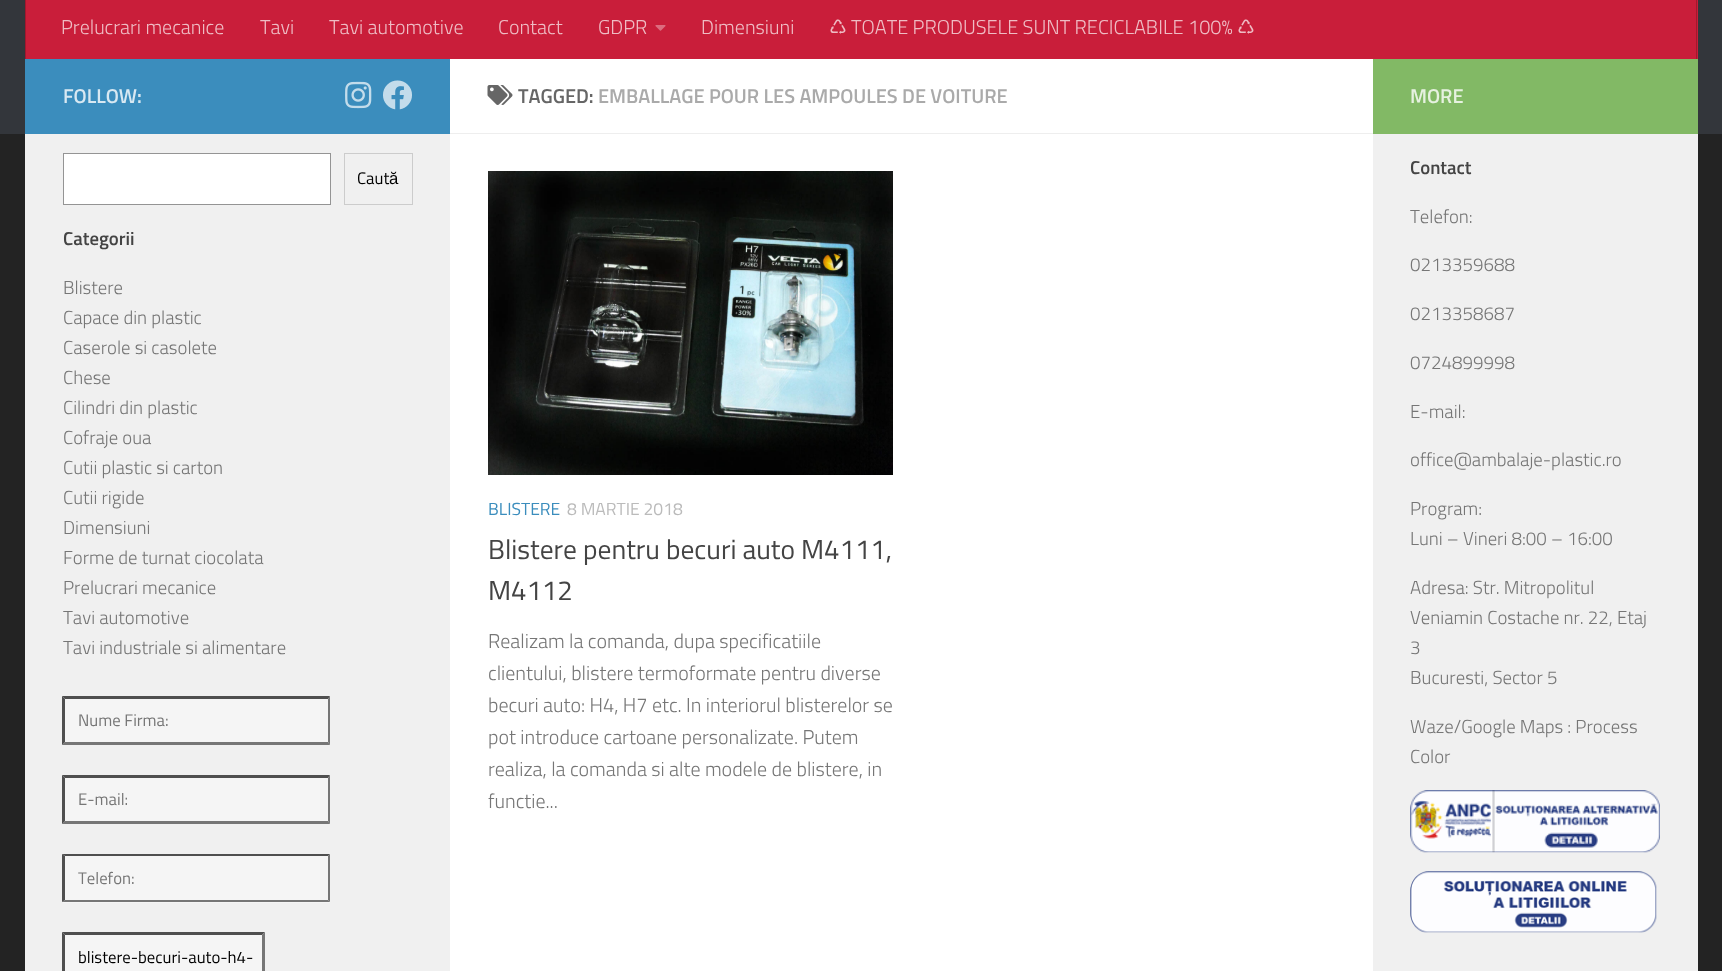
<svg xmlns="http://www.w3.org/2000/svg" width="1722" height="971">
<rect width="100%" height="100%" fill="#232323"/>
<rect width="1722" height="134" fill="#33363b"/>
<rect x="26" width="1672" height="59" fill="#c91e3a"/>
<rect x="1696" width="1" height="59" fill="#a1182e"/>
<rect x="25" width="1" height="59" fill="#a1182e"/>
<text x="61" y="34" style="font-family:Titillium;font-size:20px;font-weight:300;fill:#efbcc4">Prelucrari mecanice</text>
<text x="260" y="34" style="font-family:Titillium;font-size:20px;font-weight:300;fill:#efbcc4">Tavi</text>
<text x="329" y="34" style="font-family:Titillium;font-size:20px;font-weight:300;fill:#efbcc4">Tavi automotive</text>
<text x="498" y="34" style="font-family:Titillium;font-size:20px;font-weight:300;fill:#efbcc4">Contact</text>
<text x="598" y="34" style="font-family:Titillium;font-size:20px;font-weight:300;fill:#efbcc4">GDPR</text>
<image x="655" y="25" width="11" height="6" href="media/1.png"/>
<text x="701" y="34" style="font-family:Titillium;font-size:20px;font-weight:300;fill:#efbcc4">Dimensiuni</text>
<text x="829" y="34" style="font-family:DejaVu Sans;font-size:20px;fill:#efbcc4">♺</text>
<text x="851" y="34" style="font-family:Titillium;font-size:20px;font-weight:300;fill:#efbcc4">TOATE PRODUSELE SUNT RECICLABILE 100%</text>
<text x="1237" y="34" style="font-family:DejaVu Sans;font-size:20px;fill:#efbcc4">♺</text>
<rect x="450" y="59" width="923" height="912" fill="#fff"/>
<rect x="25" y="59" width="425" height="75" fill="#3b8dbd"/>
<text x="63" y="103" style="font-family:Titillium;font-size:20px;font-weight:600;fill:#d8e8f2">FOLLOW:</text>
<image x="345" y="81" width="27" height="28" href="media/2.png"/>
<image x="383" y="80" width="29" height="30" href="media/3.png"/>
<rect x="25" y="134" width="425" height="837" fill="#f0f0f0"/>
<rect x="63.5" y="153.5" width="267" height="51" fill="#fff" stroke="#949494"/>
<rect x="344.5" y="153.5" width="68" height="51" fill="none" stroke="#ccc"/>
<text x="357" y="184" style="font-family:Titillium;font-size:16.75px;fill:#000">Caut</text>
<text x="389" y="184" style="font-family:Liberation Sans;font-size:16.75px;fill:#000">ă</text>
<text x="63" y="245" style="font-family:Titillium;font-size:18.75px;font-weight:600;fill:#444">Categorii</text>
<text x="63" y="294" style="font-family:Titillium;font-size:18.75px;font-weight:300;fill:#767676">Blistere</text>
<text x="63" y="324" style="font-family:Titillium;font-size:18.75px;font-weight:300;fill:#767676">Capace din plastic</text>
<text x="63" y="354" style="font-family:Titillium;font-size:18.75px;font-weight:300;fill:#767676">Caserole si casolete</text>
<text x="63" y="384" style="font-family:Titillium;font-size:18.75px;font-weight:300;fill:#767676">Chese</text>
<text x="63" y="414" style="font-family:Titillium;font-size:18.75px;font-weight:300;fill:#767676">Cilindri din plastic</text>
<text x="63" y="444" style="font-family:Titillium;font-size:18.75px;font-weight:300;fill:#767676">Cofraje oua</text>
<text x="63" y="474" style="font-family:Titillium;font-size:18.75px;font-weight:300;fill:#767676">Cutii plastic si carton</text>
<text x="63" y="504" style="font-family:Titillium;font-size:18.75px;font-weight:300;fill:#767676">Cutii rigide</text>
<text x="63" y="534" style="font-family:Titillium;font-size:18.75px;font-weight:300;fill:#767676">Dimensiuni</text>
<text x="63" y="564" style="font-family:Titillium;font-size:18.75px;font-weight:300;fill:#767676">Forme de turnat ciocolata</text>
<text x="63" y="594" style="font-family:Titillium;font-size:18.75px;font-weight:300;fill:#767676">Prelucrari mecanice</text>
<text x="63" y="624" style="font-family:Titillium;font-size:18.75px;font-weight:300;fill:#767676">Tavi automotive</text>
<text x="63" y="654" style="font-family:Titillium;font-size:18.75px;font-weight:300;fill:#767676">Tavi industriale si alimentare</text>
<rect x="63" y="696" width="267" height="49" fill="#f5f5f5"/>
<path d="M62 696h268l-2 3h-263z" fill="#4f4f4f"/>
<path d="M330 696v49l-2-3v-43z" fill="#767676"/>
<path d="M330 745h-268l3-3h263z" fill="#767676"/>
<path d="M62 745v-49l3 3v43z" fill="#4f4f4f"/>
<text x="78" y="726" style="font-family:Titillium;font-size:16.75px;fill:#767676">Nume Firma:</text>
<rect x="63" y="775" width="267" height="49" fill="#f5f5f5"/>
<path d="M62 775h268l-2 3h-263z" fill="#4f4f4f"/>
<path d="M330 775v49l-2-3v-43z" fill="#767676"/>
<path d="M330 824h-268l3-3h263z" fill="#767676"/>
<path d="M62 824v-49l3 3v43z" fill="#4f4f4f"/>
<text x="78" y="805" style="font-family:Titillium;font-size:16.75px;fill:#767676">E-mail:</text>
<rect x="63" y="854" width="267" height="49" fill="#f5f5f5"/>
<path d="M62 854h268l-2 2h-263z" fill="#4f4f4f"/>
<path d="M330 854v48l-2-2v-44z" fill="#767676"/>
<path d="M330 902h-268l3-2h263z" fill="#767676"/>
<path d="M62 902v-48l3 2v44z" fill="#4f4f4f"/>
<text x="78" y="884" style="font-family:Titillium;font-size:16.75px;fill:#767676">Telefon:</text>
<rect x="63" y="933" width="201" height="38" fill="#f5f5f5"/>
<path d="M62 932h203l-3 3h-197z" fill="#4f4f4f"/>
<path d="M265 932v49l-3-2v-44z" fill="#767676"/>
<path d="M62 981v-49l3 3v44z" fill="#4f4f4f"/>
<text x="78" y="963" style="font-family:Titillium;font-size:16.75px;fill:#000">blistere-becuri-auto-h4-</text>
<rect x="450" y="133" width="923" height="1" fill="#eee"/>
<image x="487" y="85" width="26" height="20" href="media/4.png"/>
<text x="518" y="103" style="font-family:Titillium;font-size:20px;font-weight:600;fill:#666">TAGGED:</text>
<text x="598" y="103" style="font-family:Titillium;font-size:20px;font-weight:600;fill:#aaa">EMBALLAGE POUR LES AMPOULES DE VOITURE</text>
<image x="488" y="171" width="405" height="304" href="media/5.png"/>
<text x="488" y="515" style="font-family:Titillium;font-size:17.5px;fill:#3b8dbd">BLISTERE</text>
<text x="567" y="515" style="font-family:Titillium;font-size:17.5px;fill:#bbb">8 MARTIE 2018</text>
<text x="488" y="559" style="font-family:Titillium;font-size:27.5px;fill:#444">Blistere pentru becuri auto M4111,</text>
<text x="488" y="600" style="font-family:Titillium;font-size:27.5px;fill:#444">M4112</text>
<text x="488" y="648" style="font-family:Titillium;font-size:20px;font-weight:300;fill:#767676">Realizam la comanda, dupa specificatiile</text>
<text x="488" y="680" style="font-family:Titillium;font-size:20px;font-weight:300;fill:#767676">clientului, blistere termoformate pentru diverse</text>
<text x="488" y="712" style="font-family:Titillium;font-size:20px;font-weight:300;fill:#767676">becuri auto: H4, H7 etc. In interiorul blisterelor se</text>
<text x="488" y="744" style="font-family:Titillium;font-size:20px;font-weight:300;fill:#767676">pot introduce cartoane personalizate. Putem</text>
<text x="488" y="776" style="font-family:Titillium;font-size:20px;font-weight:300;fill:#767676">realiza, la comanda si alte modele de blistere, in</text>
<text x="488" y="808" style="font-family:Titillium;font-size:20px;font-weight:300;fill:#767676">functie...</text>
<rect x="1373" y="59" width="325" height="75" fill="#82b965"/>
<text x="1410" y="103" style="font-family:Titillium;font-size:20px;font-weight:600;fill:#e6f1e0">MORE</text>
<rect x="1373" y="134" width="325" height="837" fill="#f0f0f0"/>
<text x="1410" y="174" style="font-family:Titillium;font-size:18.75px;font-weight:600;fill:#444">Contact</text>
<text x="1410" y="223" style="font-family:Titillium;font-size:18.75px;font-weight:300;fill:#767676">Telefon:</text>
<text x="1410" y="271" style="font-family:Titillium;font-size:18.75px;font-weight:300;fill:#767676">0213359688</text>
<text x="1410" y="320" style="font-family:Titillium;font-size:18.75px;font-weight:300;fill:#767676">0213358687</text>
<text x="1410" y="369" style="font-family:Titillium;font-size:18.75px;font-weight:300;fill:#767676">0724899998</text>
<text x="1410" y="418" style="font-family:Titillium;font-size:18.75px;font-weight:300;fill:#767676">E-mail:</text>
<text x="1410" y="466" style="font-family:Titillium;font-size:18.75px;font-weight:300;fill:#767676">office@ambalaje-plastic.ro</text>
<text x="1410" y="515" style="font-family:Titillium;font-size:18.75px;font-weight:300;fill:#767676">Program:</text>
<text x="1410" y="545" style="font-family:Titillium;font-size:18.75px;font-weight:300;fill:#767676">Luni – Vineri 8:00 – 16:00</text>
<text x="1410" y="594" style="font-family:Titillium;font-size:18.75px;font-weight:300;fill:#767676">Adresa: Str. Mitropolitul</text>
<text x="1410" y="624" style="font-family:Titillium;font-size:18.75px;font-weight:300;fill:#767676">Veniamin Costache nr. 22, Etaj</text>
<text x="1410" y="654" style="font-family:Titillium;font-size:18.75px;font-weight:300;fill:#767676">3</text>
<text x="1410" y="684" style="font-family:Titillium;font-size:18.75px;font-weight:300;fill:#767676">Bucuresti, Sector 5</text>
<text x="1410" y="733" style="font-family:Titillium;font-size:18.75px;font-weight:300;fill:#767676">Waze/Google Maps : Process</text>
<text x="1410" y="763" style="font-family:Titillium;font-size:18.75px;font-weight:300;fill:#767676">Color</text>
<image x="1410" y="790" width="250" height="63" href="media/6.png"/>
<image x="1410" y="871" width="247" height="62" href="media/7.png"/>
</svg>
